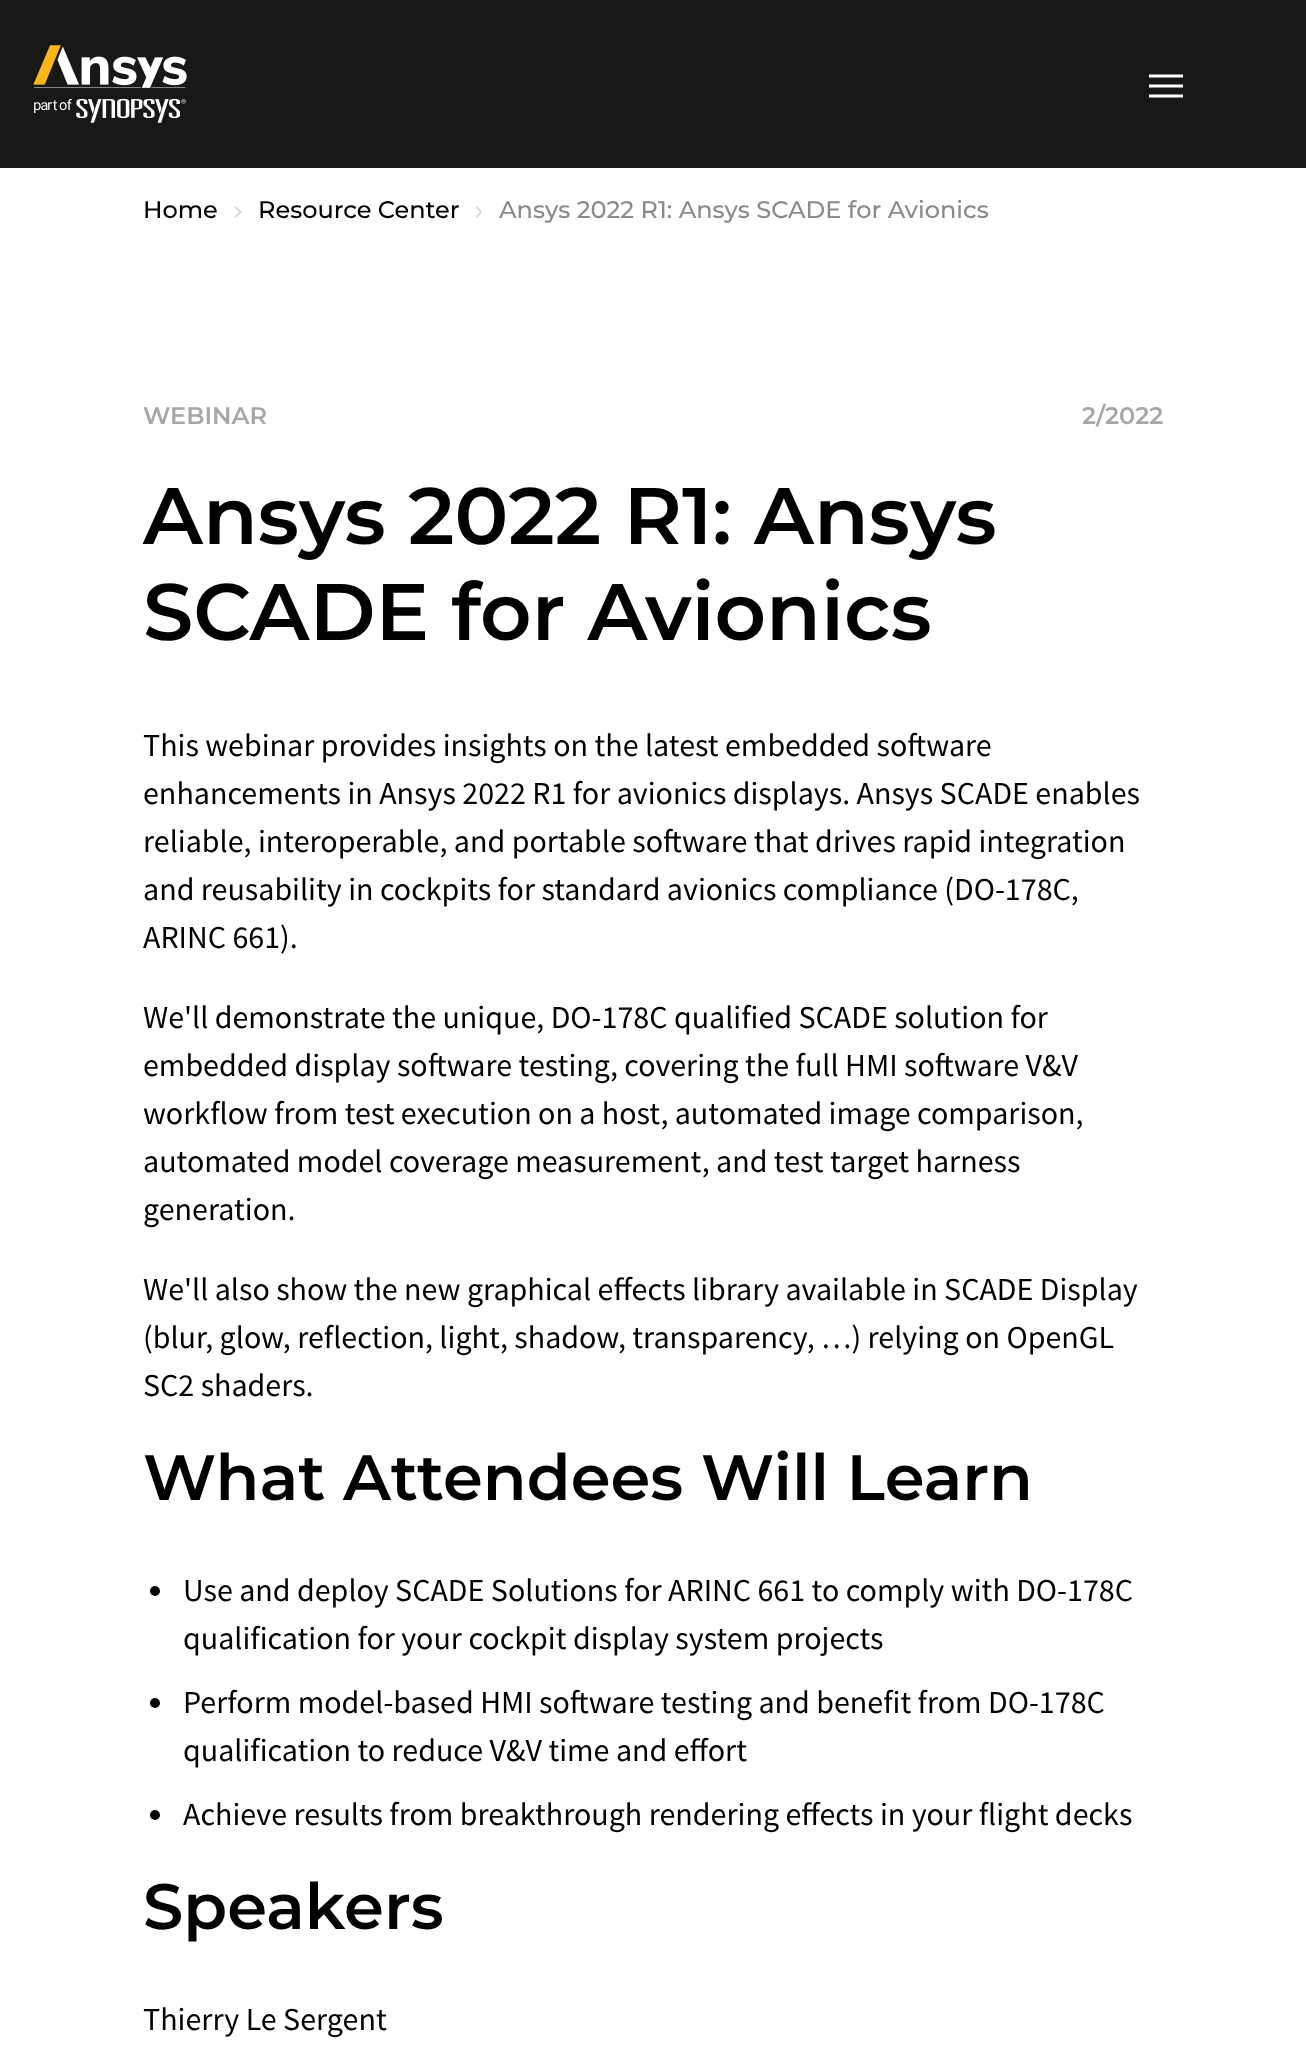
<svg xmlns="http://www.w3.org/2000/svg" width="1306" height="2061">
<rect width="100%" height="100%" fill="#fff"/>
<rect width="1306" height="168" fill="#171917"/>
<image x="33" y="45" width="154" height="78" href="media/1.png"/>
<path d="M1149 97.5v-3h34v3zm0-10v-3h34v3zm0-10v-3h34v3z" fill="#fff"/>
<text x="143" y="218" style="font-family:Montserrat;font-size:24px;font-weight:500;fill:#000">Home</text>
<image x="234" y="206" width="8" height="12" href="media/2.png"/>
<text x="258" y="218" style="font-family:Montserrat;font-size:24px;font-weight:500;fill:#000">Resource Center</text>
<image x="476" y="206" width="6" height="12" href="media/3.png"/>
<text x="499" y="218" style="font-family:Montserrat;font-size:24px;font-weight:500;fill:#898a8d">Ansys 2022 R1: Ansys SCADE for Avionics</text>
<text x="143" y="424" style="font-family:Montserrat;font-size:24px;font-weight:600;fill:#a7a7aa">WEBINAR</text>
<text x="1082" y="424" style="font-family:Montserrat;font-size:24px;font-weight:600;fill:#a7a7aa">2/2022</text>
<text x="143" y="544" style="font-family:Montserrat;font-size:80px;font-weight:600;fill:#000">Ansys 2022 R1: Ansys</text>
<text x="143" y="640" style="font-family:Montserrat;font-size:80px;font-weight:600;fill:#000">SCADE for Avionics</text>
<text x="143" y="756" style="font-family:Source Sans Pro;font-size:32px;fill:#000">This webinar provides insights on the latest embedded software</text>
<text x="143" y="804" style="font-family:Source Sans Pro;font-size:32px;fill:#000">enhancements in Ansys 2022 R1 for avionics displays. Ansys SCADE enables</text>
<text x="143" y="852" style="font-family:Source Sans Pro;font-size:32px;fill:#000">reliable, interoperable, and portable software that drives rapid integration</text>
<text x="143" y="900" style="font-family:Source Sans Pro;font-size:32px;fill:#000">and reusability in cockpits for standard avionics compliance (DO-178C,</text>
<text x="143" y="948" style="font-family:Source Sans Pro;font-size:32px;fill:#000">ARINC 661).</text>
<text x="143" y="1028" style="font-family:Source Sans Pro;font-size:32px;fill:#000">We'll demonstrate the unique, DO-178C qualified SCADE solution for</text>
<text x="143" y="1076" style="font-family:Source Sans Pro;font-size:32px;fill:#000">embedded display software testing, covering the full HMI software V&amp;V</text>
<text x="143" y="1124" style="font-family:Source Sans Pro;font-size:32px;fill:#000">workflow from test execution on a host, automated image comparison,</text>
<text x="143" y="1172" style="font-family:Source Sans Pro;font-size:32px;fill:#000">automated model coverage measurement, and test target harness</text>
<text x="143" y="1220" style="font-family:Source Sans Pro;font-size:32px;fill:#000">generation.</text>
<text x="143" y="1300" style="font-family:Source Sans Pro;font-size:32px;fill:#000">We'll also show the new graphical effects library available in SCADE Display</text>
<text x="143" y="1348" style="font-family:Source Sans Pro;font-size:32px;fill:#000">(blur, glow, reflection, light, shadow, transparency, …) relying on OpenGL</text>
<text x="143" y="1396" style="font-family:Source Sans Pro;font-size:32px;fill:#000">SC2 shaders.</text>
<text x="143" y="1500" style="font-family:Montserrat;font-size:64px;font-weight:600;fill:#000">What Attendees Will Learn</text>
<circle cx="155" cy="1591" r="5" fill="#000"/>
<text x="183" y="1601" style="font-family:Source Sans Pro;font-size:32px;fill:#000">Use and deploy SCADE Solutions for ARINC 661 to comply with DO-178C</text>
<text x="183" y="1649" style="font-family:Source Sans Pro;font-size:32px;fill:#000">qualification for your cockpit display system projects</text>
<circle cx="155" cy="1703" r="5" fill="#000"/>
<text x="183" y="1713" style="font-family:Source Sans Pro;font-size:32px;fill:#000">Perform model-based HMI software testing and benefit from DO-178C</text>
<text x="183" y="1761" style="font-family:Source Sans Pro;font-size:32px;fill:#000">qualification to reduce V&amp;V time and effort</text>
<circle cx="155" cy="1815" r="5" fill="#000"/>
<text x="183" y="1825" style="font-family:Source Sans Pro;font-size:32px;fill:#000">Achieve results from breakthrough rendering effects in your flight decks</text>
<text x="143" y="1929" style="font-family:Montserrat;font-size:64px;font-weight:600;fill:#000">Speakers</text>
<text x="143" y="2030" style="font-family:Source Sans Pro;font-size:32px;fill:#000">Thierry Le Sergent</text>
</svg>
